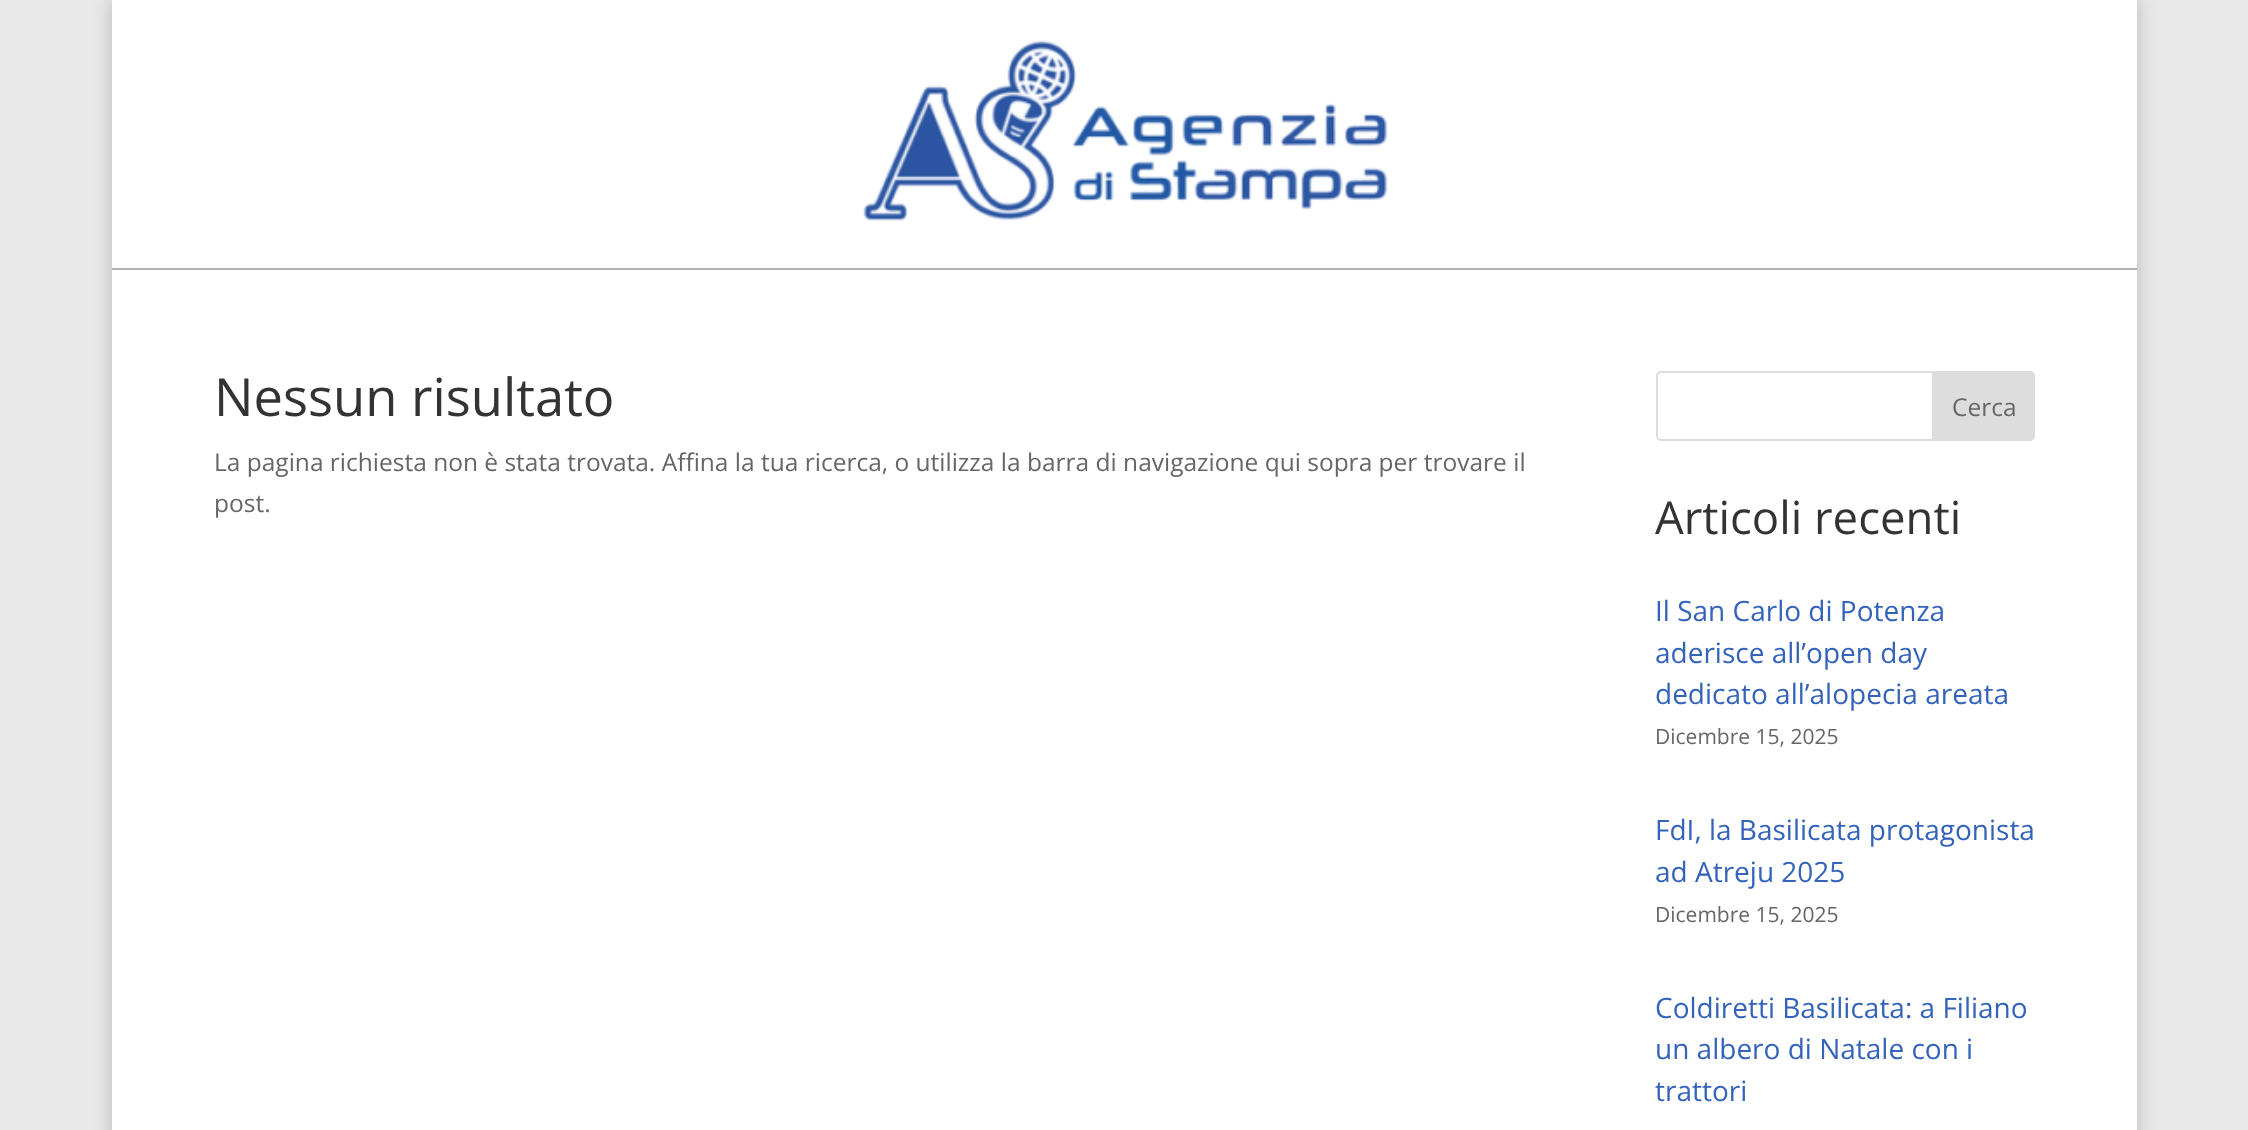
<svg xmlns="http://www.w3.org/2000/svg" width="2248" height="1130">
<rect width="100%" height="100%" fill="#e8e8e8"/>
<rect x="112" width="2025" height="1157" fill="#00000033" filter="blur(9px)"/>
<rect x="112" width="2025" height="268" fill="#fff"/>
<rect x="112" y="268" width="2025" height="2" fill="#b2b2b2"/>
<image x="862" y="40" width="526" height="181" href="media/1.png"/>
<rect x="112" y="270" width="2025" height="860" fill="#fff"/>
<text x="214" y="416" style="font-family:Open Sans;font-size:52.5px;fill:#333">Nessun risultato</text>
<text x="214" y="471" style="font-family:Open Sans;font-size:24.5px;fill:#666">La pagina richiesta non è stata trovata. Affina la tua ricerca, o utilizza la barra di navigazione qui sopra per trovare il</text>
<text x="214" y="512" style="font-family:Open Sans;font-size:24.5px;fill:#666">post.</text>
<rect x="1657" y="372" width="377" height="68" rx="4" fill="none" stroke="#ddd" stroke-width="2"/>
<path d="M1933 372h97c2 0 4 2 4 4v60c0 2-2 4-4 4h-97z" fill="#ddd" stroke="#ddd" stroke-width="2"/>
<text x="1952" y="416" style="font-family:Open Sans;font-size:24.5px;fill:#666">Cerca</text>
<text x="1655" y="534" style="font-family:Open Sans;font-size:45.5px;fill:#333">Articoli recenti</text>
<text x="1655" y="621" style="font-family:Open Sans;font-size:28px;fill:#3463ba">Il San Carlo di Potenza</text>
<text x="1655" y="663" style="font-family:Open Sans;font-size:28px;fill:#3463ba">aderisce all’open day</text>
<text x="1655" y="704" style="font-family:Open Sans;font-size:28px;fill:#3463ba">dedicato all’alopecia areata</text>
<text x="1655" y="744" style="font-family:Open Sans;font-size:21px;fill:#666">Dicembre 15, 2025</text>
<text x="1655" y="840" style="font-family:Open Sans;font-size:28px;fill:#3463ba">FdI, la Basilicata protagonista</text>
<text x="1655" y="882" style="font-family:Open Sans;font-size:28px;fill:#3463ba">ad Atreju 2025</text>
<text x="1655" y="922" style="font-family:Open Sans;font-size:21px;fill:#666">Dicembre 15, 2025</text>
<text x="1655" y="1018" style="font-family:Open Sans;font-size:28px;fill:#3463ba">Coldiretti Basilicata: a Filiano</text>
<text x="1655" y="1059" style="font-family:Open Sans;font-size:28px;fill:#3463ba">un albero di Natale con i</text>
<text x="1655" y="1101" style="font-family:Open Sans;font-size:28px;fill:#3463ba">trattori</text>
</svg>
